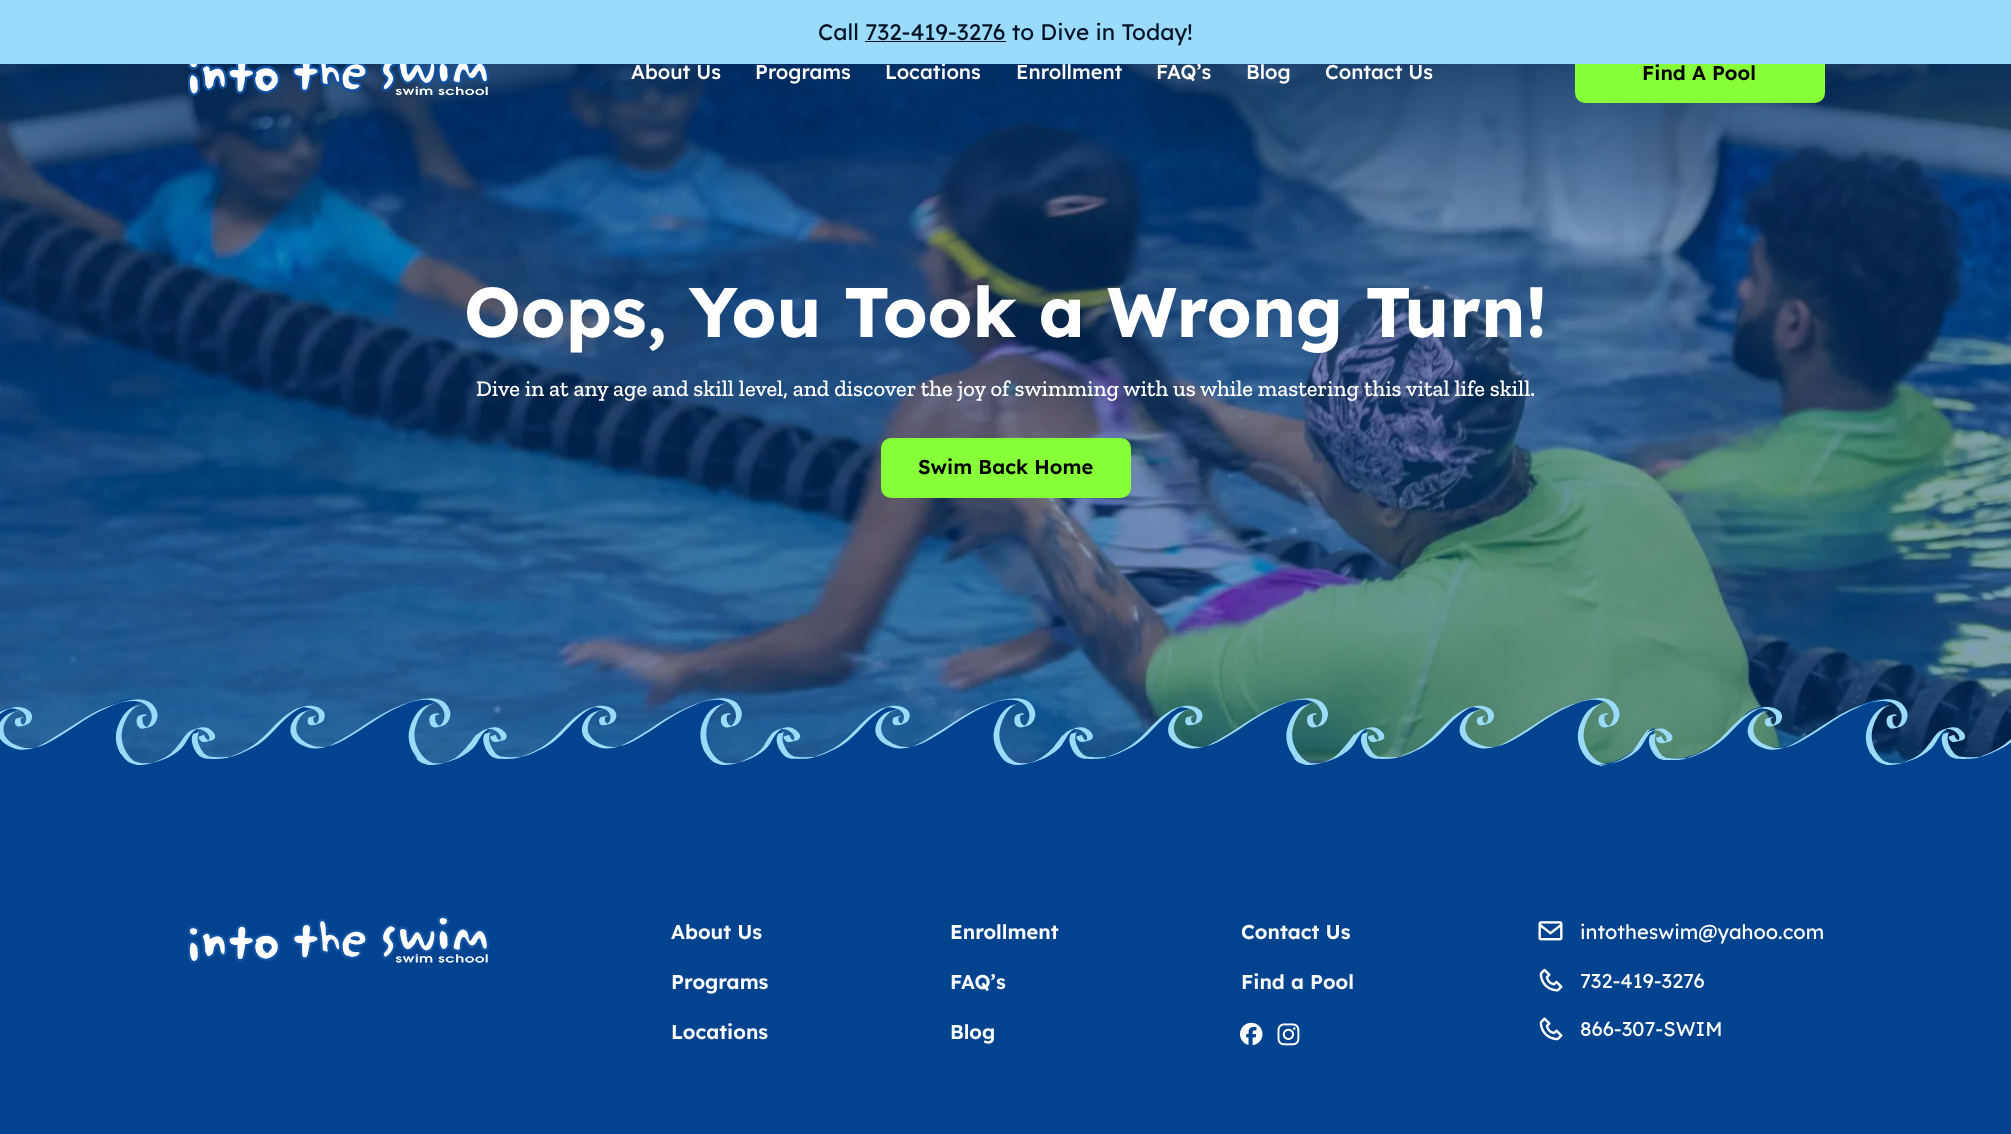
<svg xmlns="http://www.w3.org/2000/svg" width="2011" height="1134">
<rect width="100%" height="100%" fill="#fff"/>
<image x="0" y="64" width="2011" height="701" href="media/2.png"/>
<text x="885" y="79" style="font-family:Lexend;font-size:20px;font-weight:500;fill:#fff">Locations</text>
<rect x="1575" y="43" width="250" height="60" rx="10" fill="#87ff39"/>
<rect width="2011" height="64" fill="#9adbf9"/>
<text x="818" y="40" style="font-family:Lexend;font-size:22.5px;fill:#001124">Call 732-419-3276 to Dive in Today!</text>
<rect x="865" y="41" width="141" height="1" fill="#001124"/>
<image x="188" y="64" width="301" height="32" href="media/1.png"/>
<text x="631" y="79" style="font-family:Lexend;font-size:20px;font-weight:500;fill:#fff">About Us</text>
<text x="755" y="79" style="font-family:Lexend;font-size:20px;font-weight:500;fill:#fff">Programs</text>
<text x="1016" y="79" style="font-family:Lexend;font-size:20px;font-weight:500;fill:#fff">Enrollment</text>
<text x="1156" y="79" style="font-family:Lexend;font-size:20px;font-weight:500;fill:#fff">FAQ’s</text>
<text x="1246" y="79" style="font-family:Lexend;font-size:20px;font-weight:500;fill:#fff">Blog</text>
<text x="1325" y="79" style="font-family:Lexend;font-size:20px;font-weight:500;fill:#fff">Contact Us</text>
<text x="1642" y="80" style="font-family:Lexend;font-size:20px;font-weight:600;fill:#000">Find A Pool</text>
<text x="464" y="337" style="font-family:Lexend;font-size:70px;font-weight:bold;fill:#fff">Oops, You Took a Wrong Turn!</text>
<text x="476" y="396" style="font-family:Zilla Slab;font-size:22.5px;font-weight:500;fill:#fff">Dive in at any age and skill level, and discover the joy of swimming with us while mastering this vital life skill.</text>
<rect x="881" y="438" width="250" height="60" rx="10" fill="#87ff39"/>
<text x="918" y="474" style="font-family:Lexend;font-size:20px;font-weight:600;fill:#000">Swim Back Home</text>
<rect y="830" width="2011" height="304" fill="#01438e"/>
<image x="0" y="698" width="1650" height="132" href="media/3.png"/>
<image x="1600" y="698" width="411" height="132" href="media/4.png"/>
<image x="188" y="916" width="301" height="47" href="media/5.png"/>
<text x="671" y="939" style="font-family:Lexend;font-size:20px;font-weight:600;fill:#fff">About Us</text>
<text x="671" y="989" style="font-family:Lexend;font-size:20px;font-weight:600;fill:#fff">Programs</text>
<text x="671" y="1039" style="font-family:Lexend;font-size:20px;font-weight:600;fill:#fff">Locations</text>
<text x="950" y="939" style="font-family:Lexend;font-size:20px;font-weight:600;fill:#fff">Enrollment</text>
<text x="950" y="989" style="font-family:Lexend;font-size:20px;font-weight:600;fill:#fff">FAQ’s</text>
<text x="950" y="1039" style="font-family:Lexend;font-size:20px;font-weight:600;fill:#fff">Blog</text>
<text x="1241" y="939" style="font-family:Lexend;font-size:20px;font-weight:600;fill:#fff">Contact Us</text>
<text x="1241" y="989" style="font-family:Lexend;font-size:20px;font-weight:600;fill:#fff">Find a Pool</text>
<image x="1240" y="1022" width="23" height="24" href="media/6.png"/>
<image x="1277" y="1023" width="23" height="23" href="media/7.png"/>
<image x="1538" y="921" width="25" height="20" href="media/8.png"/>
<text x="1580" y="939" style="font-family:Lexend;font-size:20px;fill:#fff">intotheswim@yahoo.com</text>
<image x="1539" y="968" width="24" height="24" href="media/9.png"/>
<text x="1580" y="988" style="font-family:Lexend;font-size:20px;fill:#fff">732-419-3276</text>
<image x="1539" y="1017" width="24" height="24" href="media/10.png"/>
<text x="1580" y="1036" style="font-family:Lexend;font-size:20px;fill:#fff">866-307-SWIM</text>
</svg>
